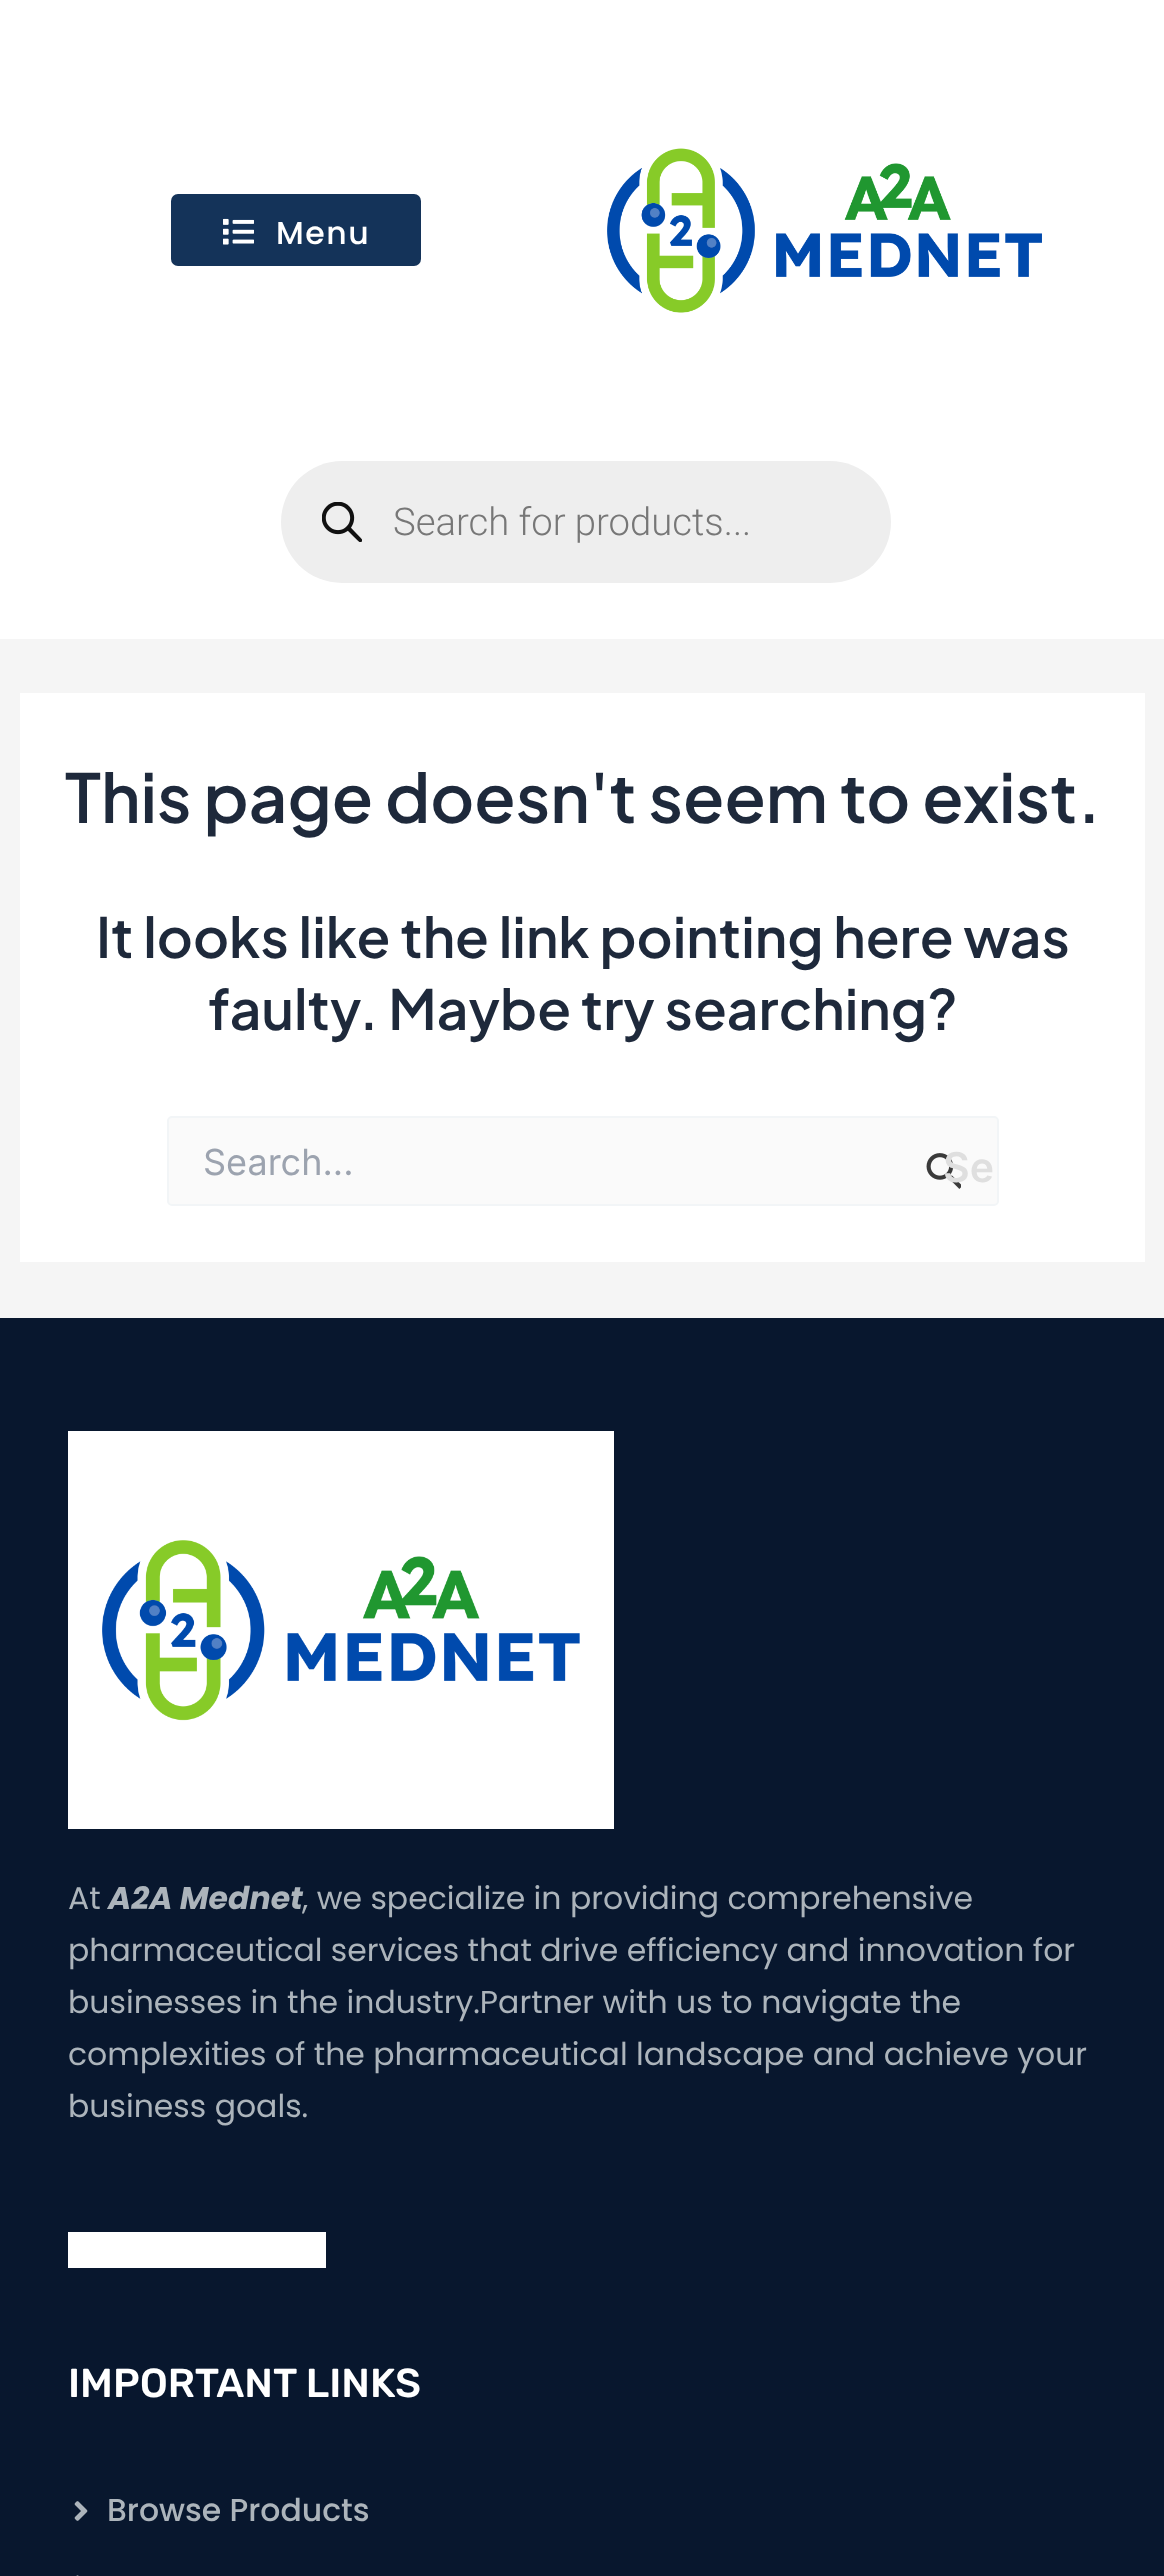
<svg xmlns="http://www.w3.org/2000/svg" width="1164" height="2576">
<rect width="100%" height="100%" fill="#f5f5f5"/>
<rect width="1164" height="639" fill="#fff"/>
<rect x="171" y="194" width="250" height="72" rx="7" fill="#143359"/>
<image x="223" y="218" width="31" height="27" href="media/1.png"/>
<text x="276" y="244" style="font-family:Poppins;font-size:31.5px;font-weight:500;letter-spacing:1.5px;fill:#fff">Menu</text>
<image x="607" y="148" width="435" height="165" href="media/2.png"/>
<rect x="281" y="461" width="610" height="122" rx="61" fill="#eee"/>
<image x="322" y="502" width="40" height="40" href="media/3.png"/>
<text x="393" y="535" style="font-family:Roboto;font-size:38.25px;font-weight:300;fill:#777">Search for products...</text>
<rect x="20" y="693" width="1125" height="569" fill="#fff"/>
<text x="65" y="823" style="font-family:Plus Jakarta Sans;font-size:67.5px;font-weight:600;fill:#1e293b">This page doesn't seem to exist.</text>
<text x="96" y="958" style="font-family:Plus Jakarta Sans;font-size:55.4px;font-weight:600;fill:#1e293b">It looks like the link pointing here was</text>
<text x="208" y="1030" style="font-family:Plus Jakarta Sans;font-size:55.4px;font-weight:600;fill:#1e293b">faulty. Maybe try searching?</text>
<rect x="168" y="1117" width="830" height="88" rx="4" fill="#fafafa" stroke="#f2f5f7" stroke-width="2"/>
<text x="203" y="1175" style="font-family:Inter;font-size:36px;fill:#9ca3af">Search...</text>
<image x="926" y="1153" width="35" height="36" href="media/4.png"/>
<text x="943" y="1182" style="font-family:Inter;font-size:41px;font-weight:600;fill:#dfdfdf">Se</text>
<rect y="1318" width="1164" height="1258" fill="#08172e"/>
<rect x="68" y="1431" width="546" height="398" fill="#fff"/>
<image x="102" y="1540" width="478" height="181" href="media/5.png"/>
<text x="68" y="1909" style="font-family:Poppins;font-size:31.5px;fill:#acb4bb">At</text>
<text x="108" y="1909" style="font-family:Poppins;font-size:31.5px;font-weight:bold;font-style:italic;fill:#acb4bb">A2A Mednet</text>
<text x="302" y="1909" style="font-family:Poppins;font-size:31.5px;fill:#acb4bb">, we specialize in providing comprehensive</text>
<text x="68" y="1961" style="font-family:Poppins;font-size:31.5px;fill:#acb4bb">pharmaceutical services that drive efficiency and innovation for</text>
<text x="68" y="2013" style="font-family:Poppins;font-size:31.5px;fill:#acb4bb">businesses in the industry.Partner with us to navigate the</text>
<text x="68" y="2065" style="font-family:Poppins;font-size:31.5px;fill:#acb4bb">complexities of the pharmaceutical landscape and achieve your</text>
<text x="68" y="2117" style="font-family:Poppins;font-size:31.5px;fill:#acb4bb">business goals.</text>
<rect x="68" y="2232" width="258" height="36" fill="#fff"/>
<text x="68" y="2397" style="font-family:Rubik;font-size:40.5px;font-weight:500;fill:#fff">IMPORTANT LINKS</text>
<image x="74" y="2501" width="14" height="20" href="media/6.png"/>
<text x="107" y="2521" style="font-family:Poppins;font-size:31.5px;font-weight:500;fill:#acb4bb">Browse Products</text>
<image x="76" y="2575" width="3" height="1" href="media/7.png"/>
</svg>
